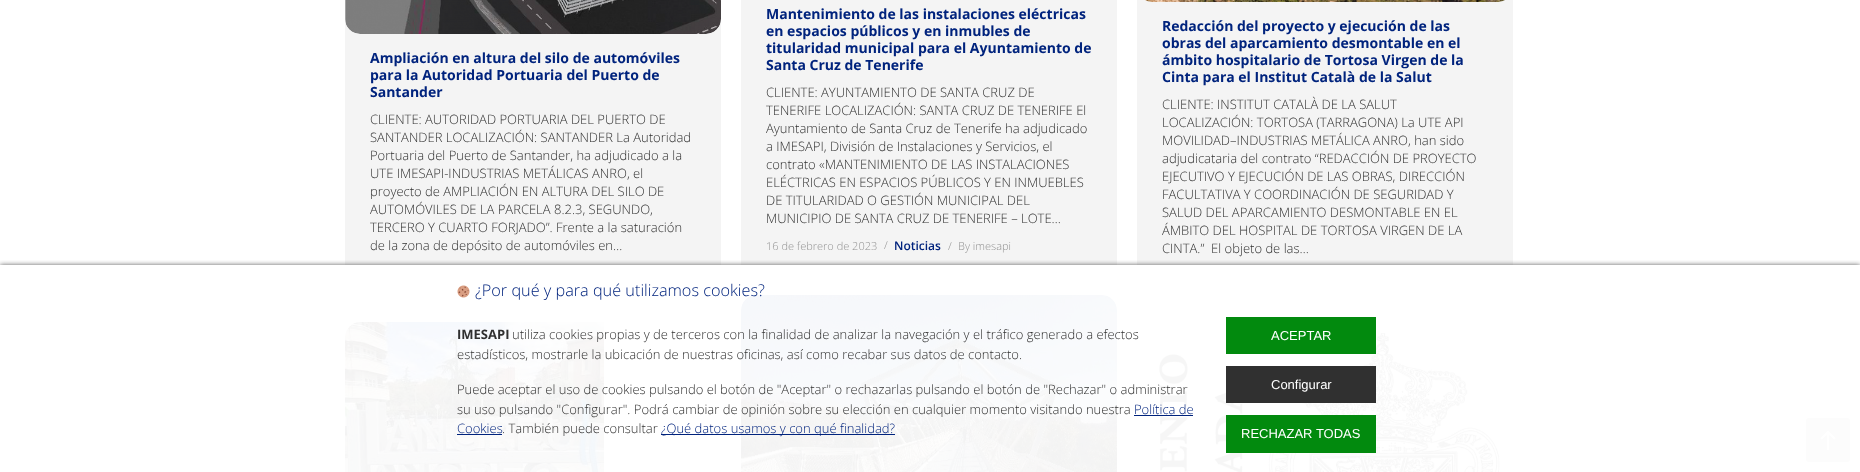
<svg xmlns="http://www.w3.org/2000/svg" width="1860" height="472">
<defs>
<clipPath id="clip1"><rect x="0" y="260" width="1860" height="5"/></clipPath>
</defs>
<rect width="100%" height="100%" fill="#fff"/>
<rect x="345" width="376" height="265" fill="#f4f4f4"/>
<image x="345" y="0" width="376" height="34" href="media/1.png"/>
<text x="370" y="63" style="font-family:Open Sans;font-size:14px;font-weight:bold;fill:#00237d">Ampliación en altura del silo de automóviles</text>
<text x="370" y="80" style="font-family:Open Sans;font-size:14px;font-weight:bold;fill:#00237d">para la Autoridad Portuaria del Puerto de</text>
<text x="370" y="97" style="font-family:Open Sans;font-size:14px;font-weight:bold;fill:#00237d">Santander</text>
<text x="370" y="124" style="font-family:Open Sans;font-size:13px;font-weight:300;fill:#303030">CLIENTE: AUTORIDAD PORTUARIA DEL PUERTO DE</text>
<text x="370" y="142" style="font-family:Open Sans;font-size:13px;font-weight:300;fill:#303030">SANTANDER LOCALIZACIÓN: SANTANDER La Autoridad</text>
<text x="370" y="160" style="font-family:Open Sans;font-size:13px;font-weight:300;fill:#303030">Portuaria del Puerto de Santander, ha adjudicado a la</text>
<text x="370" y="178" style="font-family:Open Sans;font-size:13px;font-weight:300;fill:#303030">UTE IMESAPI-INDUSTRIAS METÁLICAS ANRO, el</text>
<text x="370" y="196" style="font-family:Open Sans;font-size:13px;font-weight:300;fill:#303030">proyecto de AMPLIACIÓN EN ALTURA DEL SILO DE</text>
<text x="370" y="214" style="font-family:Open Sans;font-size:13px;font-weight:300;fill:#303030">AUTOMÓVILES DE LA PARCELA 8.2.3, SEGUNDO,</text>
<text x="370" y="232" style="font-family:Open Sans;font-size:13px;font-weight:300;fill:#303030">TERCERO Y CUARTO FORJADO”. Frente a la saturación</text>
<text x="370" y="250" style="font-family:Open Sans;font-size:13px;font-weight:300;fill:#303030">de la zona de depósito de automóviles en…</text>
<rect x="741" width="376" height="265" fill="#f4f4f4"/>
<text x="766" y="19" style="font-family:Open Sans;font-size:14px;font-weight:bold;fill:#00237d">Mantenimiento de las instalaciones eléctricas</text>
<text x="766" y="36" style="font-family:Open Sans;font-size:14px;font-weight:bold;fill:#00237d">en espacios públicos y en inmubles de</text>
<text x="766" y="53" style="font-family:Open Sans;font-size:14px;font-weight:bold;fill:#00237d">titularidad municipal para el Ayuntamiento de</text>
<text x="766" y="70" style="font-family:Open Sans;font-size:14px;font-weight:bold;fill:#00237d">Santa Cruz de Tenerife</text>
<text x="766" y="97" style="font-family:Open Sans;font-size:13px;font-weight:300;fill:#303030">CLIENTE: AYUNTAMIENTO DE SANTA CRUZ DE</text>
<text x="766" y="115" style="font-family:Open Sans;font-size:13px;font-weight:300;fill:#303030">TENERIFE LOCALIZACIÓN: SANTA CRUZ DE TENERIFE El</text>
<text x="766" y="133" style="font-family:Open Sans;font-size:13px;font-weight:300;fill:#303030">Ayuntamiento de Santa Cruz de Tenerife ha adjudicado</text>
<text x="766" y="151" style="font-family:Open Sans;font-size:13px;font-weight:300;fill:#303030">a IMESAPI, División de Instalaciones y Servicios, el</text>
<text x="766" y="169" style="font-family:Open Sans;font-size:13px;font-weight:300;fill:#303030">contrato «MANTENIMIENTO DE LAS INSTALACIONES</text>
<text x="766" y="187" style="font-family:Open Sans;font-size:13px;font-weight:300;fill:#303030">ELÉCTRICAS EN ESPACIOS PÚBLICOS Y EN INMUEBLES</text>
<text x="766" y="205" style="font-family:Open Sans;font-size:13px;font-weight:300;fill:#303030">DE TITULARIDAD O GESTIÓN MUNICIPAL DEL</text>
<text x="766" y="223" style="font-family:Open Sans;font-size:13px;font-weight:300;fill:#303030">MUNICIPIO DE SANTA CRUZ DE TENERIFE – LOTE…</text>
<text x="766" y="250" style="font-family:Open Sans;font-size:11px;font-weight:300;fill:#929292">16 de febrero de 2023</text>
<text x="884" y="249" style="font-family:Open Sans;font-size:11px;font-weight:300;fill:#929292">/</text>
<text x="894" y="250" style="font-family:Open Sans;font-size:12px;font-weight:600;fill:#00237d">Noticias</text>
<text x="948" y="250" style="font-family:Open Sans;font-size:11px;font-weight:300;fill:#929292">/</text>
<text x="958" y="250" style="font-family:Open Sans;font-size:11px;font-weight:300;fill:#929292">By imesapi</text>
<rect x="1137" width="376" height="265" fill="#f4f4f4"/>
<image x="1145" y="0" width="360" height="2" href="media/2.png"/>
<text x="1162" y="31" style="font-family:Open Sans;font-size:14px;font-weight:bold;fill:#00237d">Redacción del proyecto y ejecución de las</text>
<text x="1162" y="48" style="font-family:Open Sans;font-size:14px;font-weight:bold;fill:#00237d">obras del aparcamiento desmontable en el</text>
<text x="1162" y="65" style="font-family:Open Sans;font-size:14px;font-weight:bold;fill:#00237d">ámbito hospitalario de Tortosa Virgen de la</text>
<text x="1162" y="82" style="font-family:Open Sans;font-size:14px;font-weight:bold;fill:#00237d">Cinta para el Institut Català de la Salut</text>
<text x="1162" y="109" style="font-family:Open Sans;font-size:13px;font-weight:300;fill:#303030">CLIENTE: INSTITUT CATALÀ DE LA SALUT</text>
<text x="1162" y="127" style="font-family:Open Sans;font-size:13px;font-weight:300;fill:#303030">LOCALIZACIÓN: TORTOSA (TARRAGONA) La UTE API</text>
<text x="1162" y="145" style="font-family:Open Sans;font-size:13px;font-weight:300;fill:#303030">MOVILIDAD–INDUSTRIAS METÁLICA ANRO, han sido</text>
<text x="1162" y="163" style="font-family:Open Sans;font-size:13px;font-weight:300;fill:#303030">adjudicataria del contrato “REDACCIÓN DE PROYECTO</text>
<text x="1162" y="181" style="font-family:Open Sans;font-size:13px;font-weight:300;fill:#303030">EJECUTIVO Y EJECUCIÓN DE LAS OBRAS, DIRECCIÓN</text>
<text x="1162" y="199" style="font-family:Open Sans;font-size:13px;font-weight:300;fill:#303030">FACULTATIVA Y COORDINACIÓN DE SEGURIDAD Y</text>
<text x="1162" y="217" style="font-family:Open Sans;font-size:13px;font-weight:300;fill:#303030">SALUD DEL APARCAMIENTO DESMONTABLE EN EL</text>
<text x="1162" y="235" style="font-family:Open Sans;font-size:13px;font-weight:300;fill:#303030">ÁMBITO DEL HOSPITAL DE TORTOSA VIRGEN DE LA</text>
<text x="1162" y="253" style="font-family:Open Sans;font-size:13px;font-weight:300;fill:#303030" xml:space="preserve">CINTA.”  El objeto de las…</text>
<image x="345" y="322" width="259" height="150" href="media/3.png"/>
<image x="741" y="295" width="376" height="177" href="media/4.png"/>
<image x="1137" y="325" width="376" height="147" href="media/5.png"/>
<rect x="1806" y="418" width="44" height="44" rx="3" fill="#fcfcfc"/>
<image x="1820" y="431" width="16" height="19" href="media/6.png"/>
<g clip-path="url(#clip1)">
<rect y="265" width="1860" height="207" fill="#5d5d5d" filter="blur(2.5px)"/>
</g>
<image x="457" y="285" width="13" height="13" href="media/7.png"/>
<text x="475" y="296" style="font-family:Open Sans;font-size:16.25px;font-weight:300;fill:#00237d">¿Por qué y para qué utilizamos cookies?</text>
<text x="457" y="339" style="font-family:Open Sans;font-size:13px;font-weight:bold;fill:#303030">IMESAPI</text>
<text x="512" y="339" style="font-family:Open Sans;font-size:13px;font-weight:300;fill:#303030">utiliza cookies propias y de terceros con la finalidad de analizar la navegación y el tráfico generado a efectos</text>
<text x="457" y="359" style="font-family:Open Sans;font-size:13px;font-weight:300;fill:#303030">estadísticos, mostrarle la ubicación de nuestras oficinas, así como recabar sus datos de contacto.</text>
<text x="457" y="394" style="font-family:Open Sans;font-size:13px;font-weight:300;fill:#303030">Puede aceptar el uso de cookies pulsando el botón de "Aceptar" o rechazarlas pulsando el botón de "Rechazar" o administrar</text>
<text x="457" y="414" style="font-family:Open Sans;font-size:13px;font-weight:300;fill:#303030">su uso pulsando "Configurar". Podrá cambiar de opinión sobre su elección en cualquier momento visitando nuestra</text>
<text x="1134" y="414" style="font-family:Open Sans;font-size:13px;font-weight:300;fill:#00237d">Política de</text>
<rect x="1134" y="415" width="59" height="1" fill="#00237d"/>
<text x="457" y="433" style="font-family:Open Sans;font-size:13px;font-weight:300;fill:#00237d">Cookies</text>
<rect x="457" y="434" width="45" height="1" fill="#00237d"/>
<text x="502" y="433" style="font-family:Open Sans;font-size:13px;font-weight:300;fill:#303030">. También puede consultar</text>
<rect x="661" y="434" width="234" height="1" fill="#00237d"/>
<text x="661" y="433" style="font-family:Open Sans;font-size:13px;font-weight:300;fill:#00237d">¿Qué datos usamos y con qué finalidad?</text>
<rect x="1226" y="317" width="150" height="37" fill="#028a0e"/>
<text x="1271" y="340" style="font-family:Liberation Sans;font-size:13px;fill:#fff">ACEPTAR</text>
<rect x="1226" y="366" width="150" height="37" fill="#303030"/>
<text x="1271" y="389" style="font-family:Liberation Sans;font-size:13px;fill:#fff">Configurar</text>
<rect x="1226" y="415" width="150" height="38" fill="#028a0e"/>
<text x="1241" y="438" style="font-family:Liberation Sans;font-size:13px;fill:#fff">RECHAZAR TODAS</text>
</svg>
